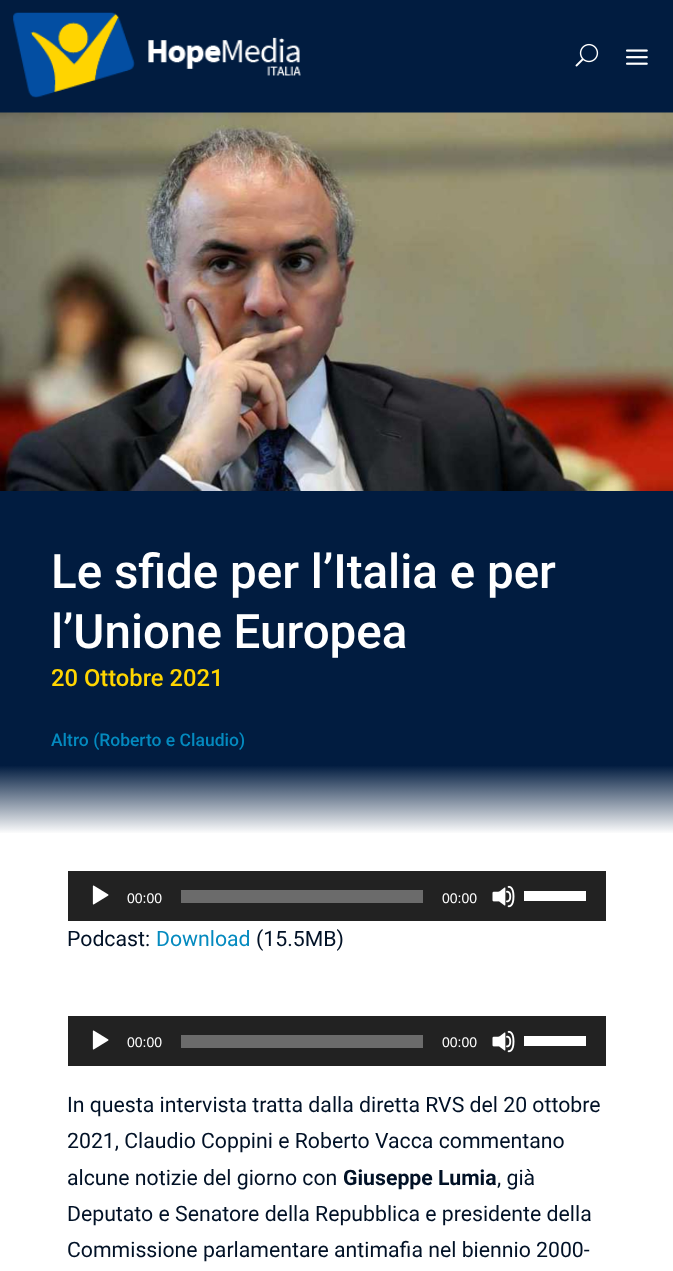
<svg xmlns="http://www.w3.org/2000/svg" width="673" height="1271">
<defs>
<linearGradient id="g1" gradientUnits="userSpaceOnUse" x1="337" y1="491" x2="337" y2="834"><stop offset="0.8" stop-color="#011c40"/><stop offset="1" stop-color="#fff"/></linearGradient>
</defs>
<rect width="100%" height="100%" fill="#fff"/>
<rect width="673" height="113" fill="#011c40"/>
<image x="13" y="12" width="288" height="86" href="media/1.png"/>
<image x="575" y="43" width="24" height="24" href="media/2.png"/>
<image x="626" y="49" width="22" height="16" href="media/3.png"/>
<image x="0" y="112" width="673" height="379" href="media/4.png"/>
<rect y="491" width="673" height="342" fill="url(#g1)"/>
<text x="51" y="588" style="font-family:Roboto;font-size:47.5px;font-weight:500;fill:#fff">Le sfide per l’Italia e per</text>
<text x="51" y="648" style="font-family:Roboto;font-size:47.5px;font-weight:500;fill:#fff">l’Unione Europea</text>
<text x="51" y="686" style="font-family:Roboto;font-size:23.75px;font-weight:500;fill:#ffd500">20 Ottobre 2021</text>
<text x="51" y="746" style="font-family:Roboto;font-size:17.5px;font-weight:500;fill:#048abf">Altro (Roberto e Claudio)</text>
<rect x="68" y="871" width="538" height="50" fill="#222"/>
<image x="92" y="885" width="17" height="20" href="media/5.png"/>
<text x="127" y="903" style="font-family:Liberation Sans;font-size:14px;fill:#fff">00:00</text>
<rect x="181" y="890" width="242" height="13" fill="#6b6b6b"/>
<text x="442" y="903" style="font-family:Liberation Sans;font-size:14px;fill:#fff">00:00</text>
<image x="492" y="885" width="23" height="23" href="media/6.png"/>
<rect x="524" y="891" width="62" height="10" fill="#fff"/>
<text x="67" y="946" style="font-family:Roboto;font-size:21.25px;fill:#011126">Podcast:</text>
<text x="156" y="946" style="font-family:Roboto;font-size:21.25px;fill:#048abf">Download</text>
<text x="256" y="946" style="font-family:Roboto;font-size:21.25px;fill:#011126">(15.5MB)</text>
<rect x="68" y="1016" width="538" height="50" fill="#222"/>
<image x="92" y="1030" width="17" height="20" href="media/5.png"/>
<text x="127" y="1047" style="font-family:Liberation Sans;font-size:14px;fill:#fff">00:00</text>
<rect x="181" y="1035" width="242" height="13" fill="#6b6b6b"/>
<text x="442" y="1047" style="font-family:Liberation Sans;font-size:14px;fill:#fff">00:00</text>
<image x="492" y="1030" width="23" height="23" href="media/6.png"/>
<rect x="524" y="1036" width="62" height="10" fill="#fff"/>
<text x="67" y="1112" style="font-family:Roboto;font-size:21.25px;fill:#011126">In questa intervista tratta dalla diretta RVS del 20 ottobre</text>
<text x="67" y="1148" style="font-family:Roboto;font-size:21.25px;fill:#011126">2021, Claudio Coppini e Roberto Vacca commentano</text>
<text x="67" y="1185" style="font-family:Roboto;font-size:21.25px;fill:#011126">alcune notizie del giorno con</text>
<text x="343" y="1185" style="font-family:Roboto;font-size:21.25px;font-weight:bold;fill:#011126">Giuseppe Lumia</text>
<text x="497" y="1185" style="font-family:Roboto;font-size:21.25px;fill:#011126">, già</text>
<text x="67" y="1221" style="font-family:Roboto;font-size:21.25px;fill:#011126">Deputato e Senatore della Repubblica e presidente della</text>
<text x="67" y="1257" style="font-family:Roboto;font-size:21.25px;fill:#011126">Commissione parlamentare antimafia nel biennio 2000-</text>
</svg>
